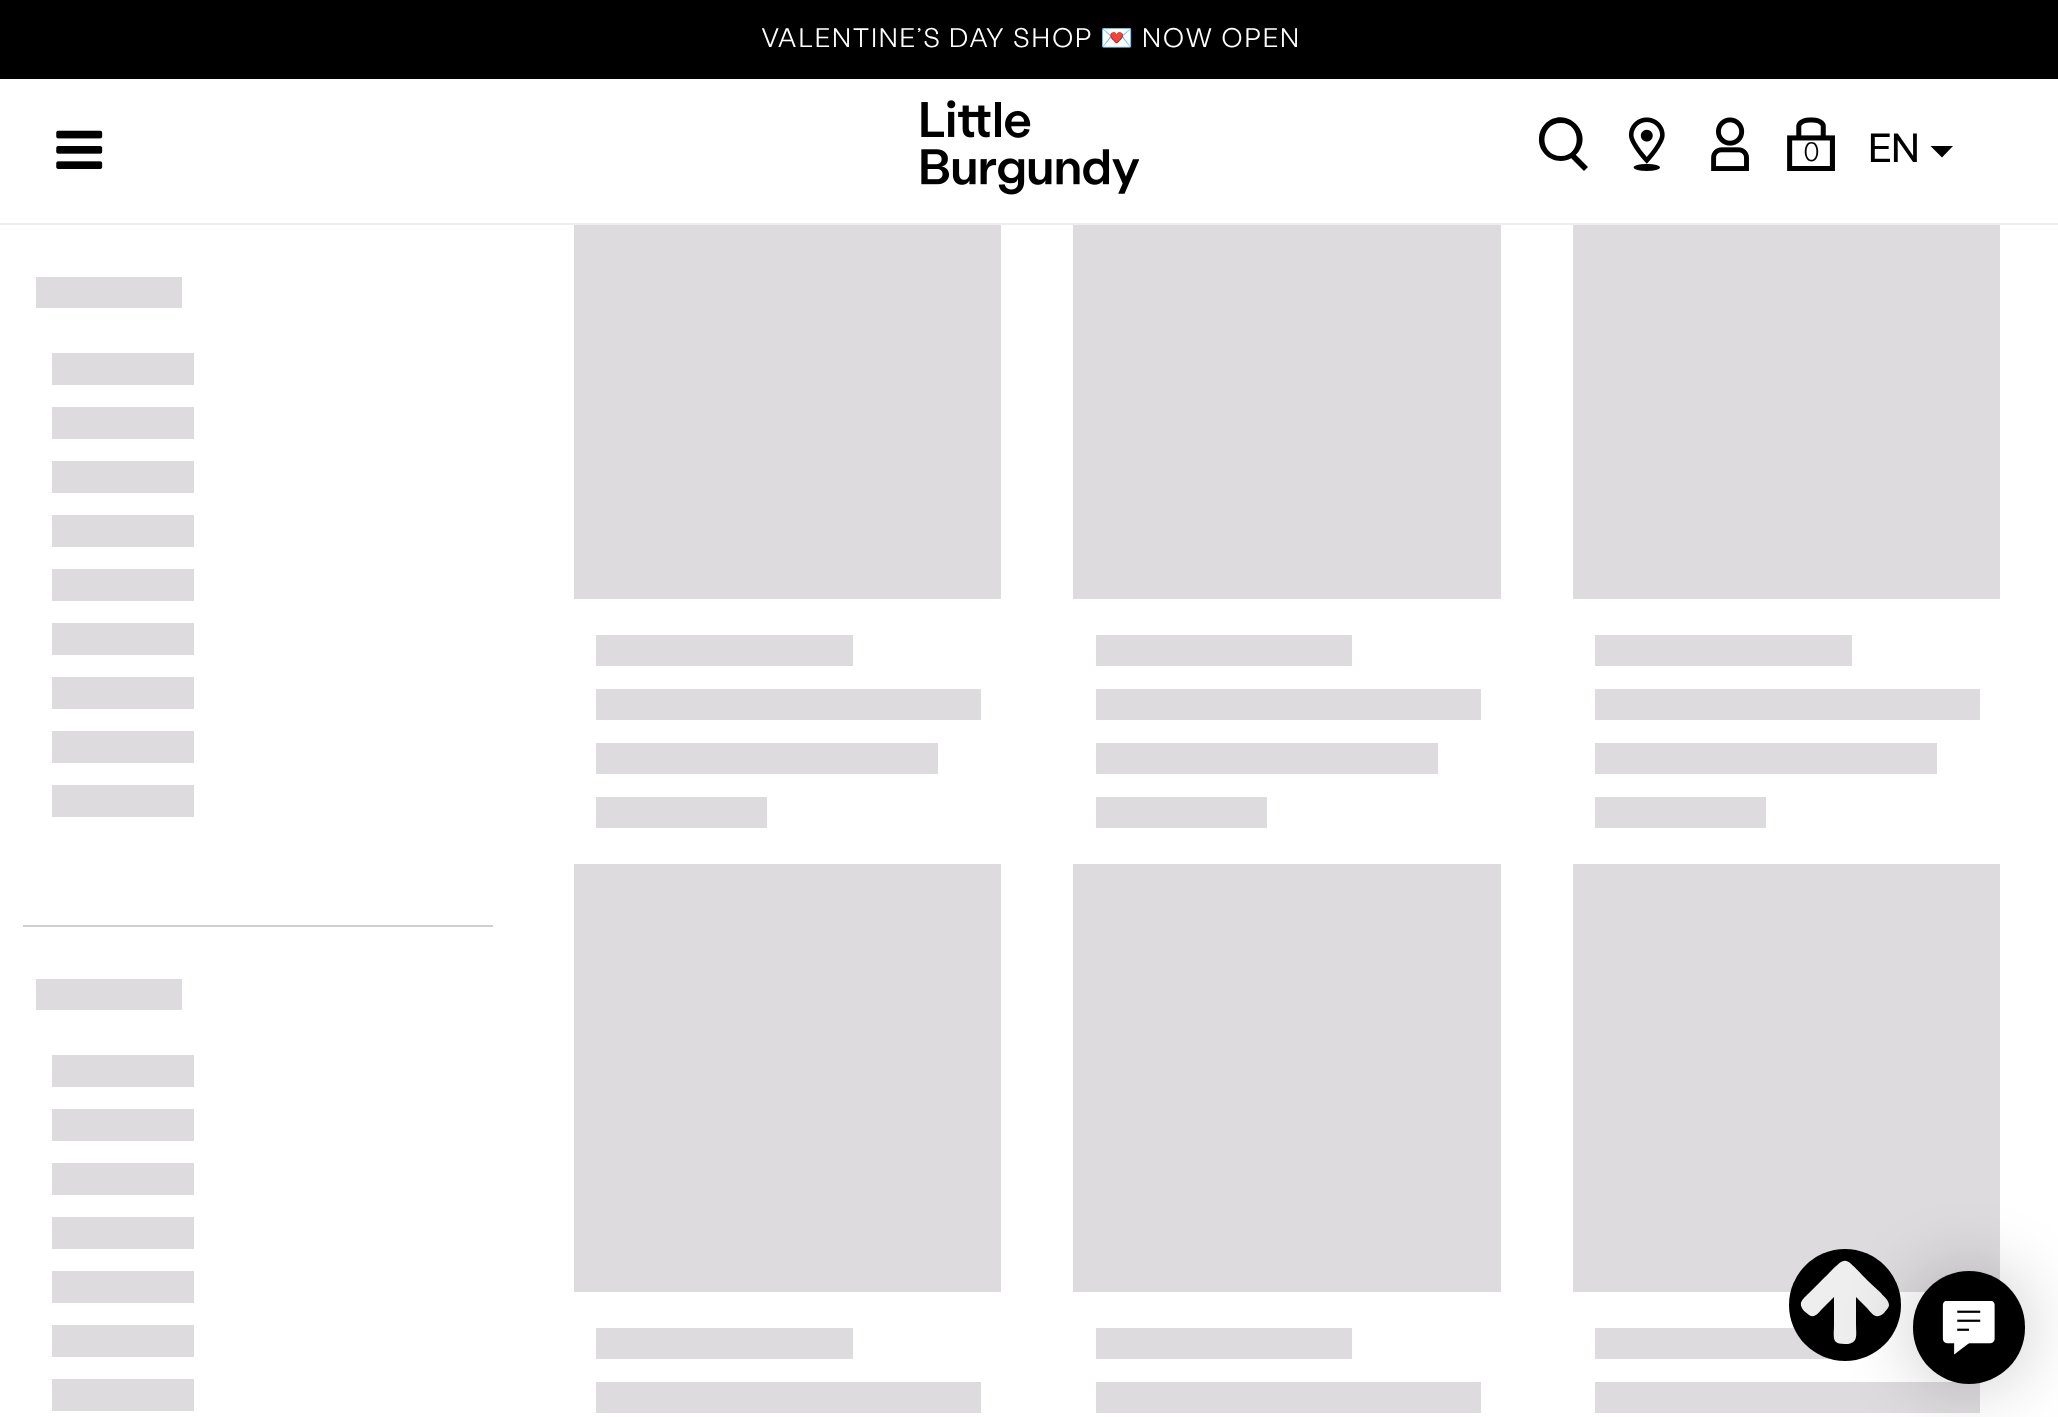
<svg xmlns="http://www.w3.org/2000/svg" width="2058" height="1417">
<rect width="100%" height="100%" fill="#fff"/>
<rect width="2058" height="79" fill="#000"/>
<text x="761" y="47" style="font-family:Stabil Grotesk;font-size:26.75px;font-weight:300;letter-spacing:1.6px;fill:#fff">VALENTINE’S DAY SHOP</text>
<text x="1100" y="47" style="font-family:Noto Color Emoji;font-size:26.75px;letter-spacing:1.6px;fill:#fff">💌</text>
<text x="1142" y="47" style="font-family:Stabil Grotesk;font-size:26.75px;font-weight:300;letter-spacing:1.6px;fill:#fff">NOW OPEN</text>
<rect y="223" width="2058" height="2" fill="#eee"/>
<image x="56" y="130" width="47" height="39" href="media/1.png"/>
<image x="921" y="100" width="218" height="95" href="media/2.png"/>
<path d="M1561 123c-22 0-22 33 0 33c21 0 21-33 0-33zm0 38c-13 0-23-11-22-23c0-5 2-10 6-14c19-19 48 6 34 27c-4 6-11 10-18 10zm23 10l-14-14l4-4l14 14z" fill="#000"/>
<image x="1628" y="117" width="37" height="54" href="media/3.png"/>
<image x="1711" y="117" width="38" height="54" href="media/4.png"/>
<image x="1787" y="117" width="48" height="54" href="media/5.png"/>
<text x="1803" y="161" style="font-family:Stabil Grotesk;font-size:26.75px;font-weight:300;fill:#000">0</text>
<text x="1868" y="162" style="font-family:Stabil Grotesk;font-size:39px;font-weight:bold;fill:#000">EN</text>
<path d="M1930.5 146h22.5l-11 11.5z" fill="#000"/>
<rect x="23" y="925" width="470" height="2" fill="#cfcfcf"/>
<rect x="36" y="277" width="146" height="31" fill="#dddbdd"/>
<rect x="52" y="353" width="142" height="32" fill="#dddbdd"/>
<rect x="52" y="407" width="142" height="32" fill="#dddbdd"/>
<rect x="52" y="461" width="142" height="32" fill="#dddbdd"/>
<rect x="52" y="515" width="142" height="32" fill="#dddbdd"/>
<rect x="52" y="569" width="142" height="32" fill="#dddbdd"/>
<rect x="52" y="623" width="142" height="32" fill="#dddbdd"/>
<rect x="52" y="677" width="142" height="32" fill="#dddbdd"/>
<rect x="52" y="731" width="142" height="32" fill="#dddbdd"/>
<rect x="52" y="785" width="142" height="32" fill="#dddbdd"/>
<rect x="36" y="979" width="146" height="31" fill="#dddbdd"/>
<rect x="52" y="1055" width="142" height="32" fill="#dddbdd"/>
<rect x="52" y="1109" width="142" height="32" fill="#dddbdd"/>
<rect x="52" y="1163" width="142" height="32" fill="#dddbdd"/>
<rect x="52" y="1217" width="142" height="32" fill="#dddbdd"/>
<rect x="52" y="1271" width="142" height="32" fill="#dddbdd"/>
<rect x="52" y="1325" width="142" height="32" fill="#dddbdd"/>
<rect x="52" y="1379" width="142" height="32" fill="#dddbdd"/>
<rect x="574" y="225" width="427" height="374" fill="#dddbdd"/>
<rect x="596" y="635" width="257" height="31" fill="#dddbdd"/>
<rect x="596" y="689" width="385" height="31" fill="#dddbdd"/>
<rect x="596" y="743" width="342" height="31" fill="#dddbdd"/>
<rect x="596" y="797" width="171" height="31" fill="#dddbdd"/>
<rect x="1073" y="225" width="428" height="374" fill="#dddbdd"/>
<rect x="1096" y="635" width="256" height="31" fill="#dddbdd"/>
<rect x="1096" y="689" width="385" height="31" fill="#dddbdd"/>
<rect x="1096" y="743" width="342" height="31" fill="#dddbdd"/>
<rect x="1096" y="797" width="171" height="31" fill="#dddbdd"/>
<rect x="1573" y="225" width="427" height="374" fill="#dddbdd"/>
<rect x="1595" y="635" width="257" height="31" fill="#dddbdd"/>
<rect x="1595" y="689" width="385" height="31" fill="#dddbdd"/>
<rect x="1595" y="743" width="342" height="31" fill="#dddbdd"/>
<rect x="1595" y="797" width="171" height="31" fill="#dddbdd"/>
<rect x="574" y="864" width="427" height="428" fill="#dddbdd"/>
<rect x="596" y="1328" width="257" height="31" fill="#dddbdd"/>
<rect x="596" y="1382" width="385" height="31" fill="#dddbdd"/>
<rect x="1073" y="864" width="428" height="428" fill="#dddbdd"/>
<rect x="1096" y="1328" width="256" height="31" fill="#dddbdd"/>
<rect x="1096" y="1382" width="385" height="31" fill="#dddbdd"/>
<rect x="1573" y="864" width="427" height="428" fill="#dddbdd"/>
<rect x="1595" y="1328" width="236" height="31" fill="#dddbdd"/>
<rect x="1595" y="1382" width="385" height="31" fill="#dddbdd"/>
<circle cx="1845" cy="1305" r="56" fill="#000"/>
<path d="M1889 1305c0 3-3 5-5 8c-8 7-12 1-17-5l-11-11v27c0 11 3 20-11 20c-14 0-11-6-11-20v-27l-11 11c-4 4-8 11-14 7l-5-4c-7-8-1-12 5-18l12-12c28-27 20-27 47 0l13 12c2 3 8 7 8 12z" fill="#eee"/>
<rect x="1910" y="1269" width="117" height="117" rx="58.5" fill="#00000033" filter="blur(34px)"/>
<rect x="1913" y="1271" width="112" height="113" rx="56" fill="#000"/>
<image x="1942" y="1301" width="53" height="54" href="media/6.png"/>
</svg>
